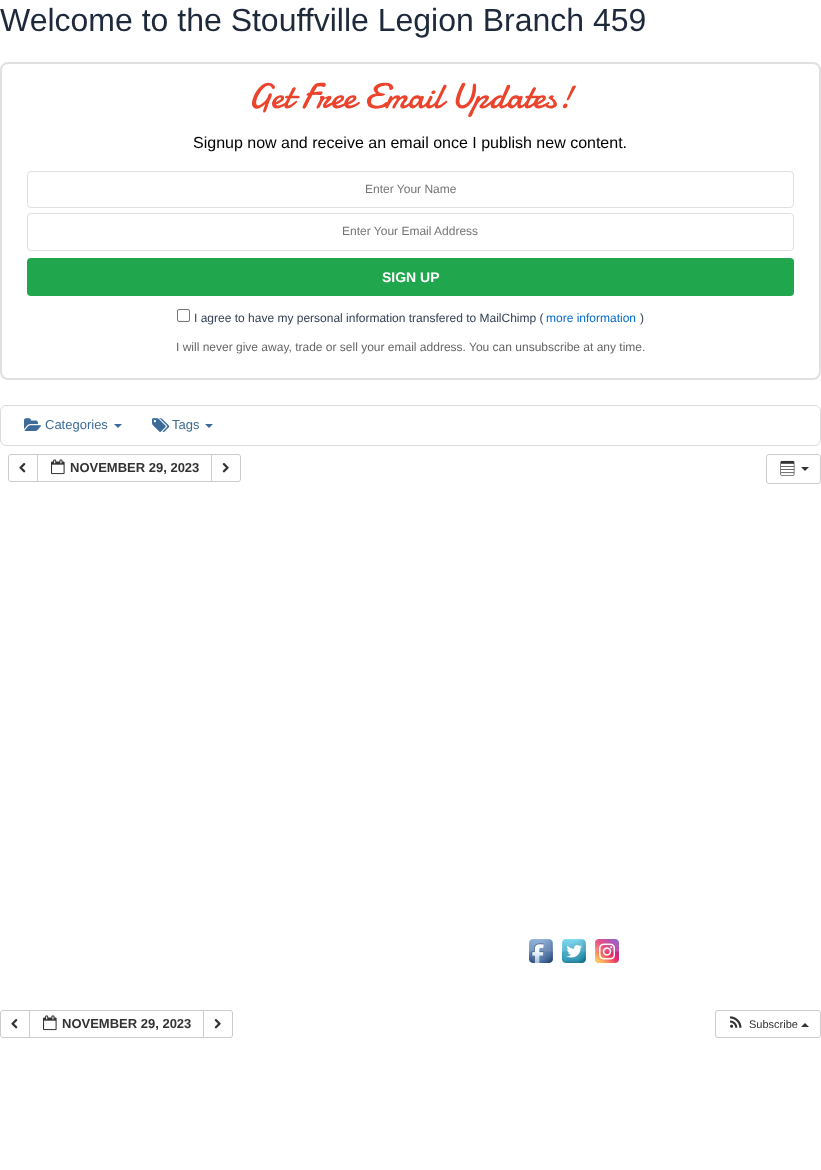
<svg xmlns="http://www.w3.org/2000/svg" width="821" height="1170">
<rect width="100%" height="100%" fill="#fff"/>
<text x="0" y="31" style="font-family:Liberation Sans;font-size:32px;fill:#1e293b">Welcome to the Stouffville Legion Branch 459</text>
<rect x="1" y="63" width="819" height="316" rx="7" fill="none" stroke="#e0e0e0" stroke-width="2"/>
<text x="248" y="108" style="font-family:Damion;font-size:36px;fill:#eb432c">Get Free Email Updates!</text>
<text x="193" y="148" style="font-family:Liberation Sans;font-size:16px;fill:#000">Signup now and receive an email once I publish new content.</text>
<rect x="27.5" y="171.5" width="766" height="36" rx="3.5" fill="none" stroke="#dfdfdf"/>
<text x="365" y="193" style="font-family:Liberation Sans;font-size:12px;fill:#757575">Enter Your Name</text>
<rect x="27.5" y="213.5" width="766" height="37" rx="3.5" fill="none" stroke="#dfdfdf"/>
<text x="342" y="235" style="font-family:Liberation Sans;font-size:12px;fill:#757575">Enter Your Email Address</text>
<rect x="27" y="258" width="767" height="38" rx="4" fill="#20a64c"/>
<text x="382" y="282" style="font-family:Liberation Sans;font-size:14px;font-weight:bold;fill:#fff">SIGN UP</text>
<rect x="177.5" y="309.5" width="12" height="12" rx="1.5" fill="none" stroke="#767676"/>
<text x="194" y="322" style="font-family:Liberation Sans;font-size:12px;fill:#334155">I agree to have my personal information transfered to MailChimp (</text>
<text x="546" y="322" style="font-family:Liberation Sans;font-size:12px;fill:#046bd2">more information</text>
<text x="640" y="322" style="font-family:Liberation Sans;font-size:12px;fill:#334155">)</text>
<text x="176" y="351" style="font-family:Liberation Sans;font-size:12px;fill:#666">I will never give away, trade or sell your email address. You can unsubscribe at any time.</text>
<rect x="0.5" y="405.5" width="820" height="40" rx="5.5" fill="none" stroke="#dbdbdb"/>
<image x="24" y="418" width="17" height="13" href="media/1.png"/>
<text x="45" y="429" style="font-family:Liberation Sans;font-size:13px;fill:#3d6b99">Categories</text>
<path d="M114 424h8l-4 4z" fill="#3d6b99"/>
<image x="152" y="418" width="18" height="14" href="media/2.png"/>
<text x="172" y="429" style="font-family:Liberation Sans;font-size:13px;fill:#3d6b99">Tags</text>
<path d="M205 424h8l-4 4z" fill="#3d6b99"/>
<path d="M11 454.5h26.5v27h-26.5c-1.5 0-2.5-1-2.5-2.5v-22c0-1.5 1-2.5 2.5-2.5z" fill="none" stroke="#ccc"/>
<image x="19" y="463" width="7" height="10" href="media/3.png"/>
<rect x="37.5" y="454.5" width="174" height="27" fill="none" stroke="#ccc"/>
<image x="51" y="459" width="14" height="16" href="media/4.png"/>
<text x="70" y="472" style="font-family:Liberation Sans;font-size:13px;font-weight:bold;fill:#333">NOVEMBER 29, 2023</text>
<path d="M211.5 454.5h26.5c1.5 0 2.5 1 2.5 2.5v22c0 1.5-1 2.5-2.5 2.5h-26.5z" fill="#fff" stroke="#ccc"/>
<image x="222" y="463" width="7" height="10" href="media/5.png"/>
<rect x="766.5" y="454.5" width="54" height="29" rx="2.5" fill="none" stroke="#ccc"/>
<image x="780" y="460" width="15" height="16" href="media/6.png"/>
<path d="M801 467h8l-4 4z" fill="#333"/>
<path d="M3 1010.5h26.5v27h-26.5c-1.5 0-2.5-1-2.5-2.5v-22c0-1.5 1-2.5 2.5-2.5z" fill="none" stroke="#ccc"/>
<image x="11" y="1019" width="7" height="10" href="media/3.png"/>
<rect x="29.5" y="1010.5" width="174" height="27" fill="none" stroke="#ccc"/>
<image x="43" y="1015" width="14" height="16" href="media/4.png"/>
<text x="62" y="1028" style="font-family:Liberation Sans;font-size:13px;font-weight:bold;fill:#333">NOVEMBER 29, 2023</text>
<path d="M203.5 1010.5h26.5c1.5 0 2.5 1 2.5 2.5v22c0 1.5-1 2.5-2.5 2.5h-26.5z" fill="#fff" stroke="#ccc"/>
<image x="214" y="1019" width="7" height="10" href="media/5.png"/>
<rect x="715.5" y="1010.5" width="105" height="27" rx="2.5" fill="none" stroke="#ccc"/>
<image x="730" y="1016" width="12" height="12" href="media/7.png"/>
<text x="749" y="1028" style="font-family:Liberation Sans;font-size:11px;fill:#333">Subscribe</text>
<path d="M809 1027h-8l4-4z" fill="#333"/>
<image x="529" y="939" width="24" height="24" href="media/8.png"/>
<image x="562" y="939" width="24" height="24" href="media/9.png"/>
<image x="595" y="939" width="24" height="24" href="media/10.png"/>
</svg>
